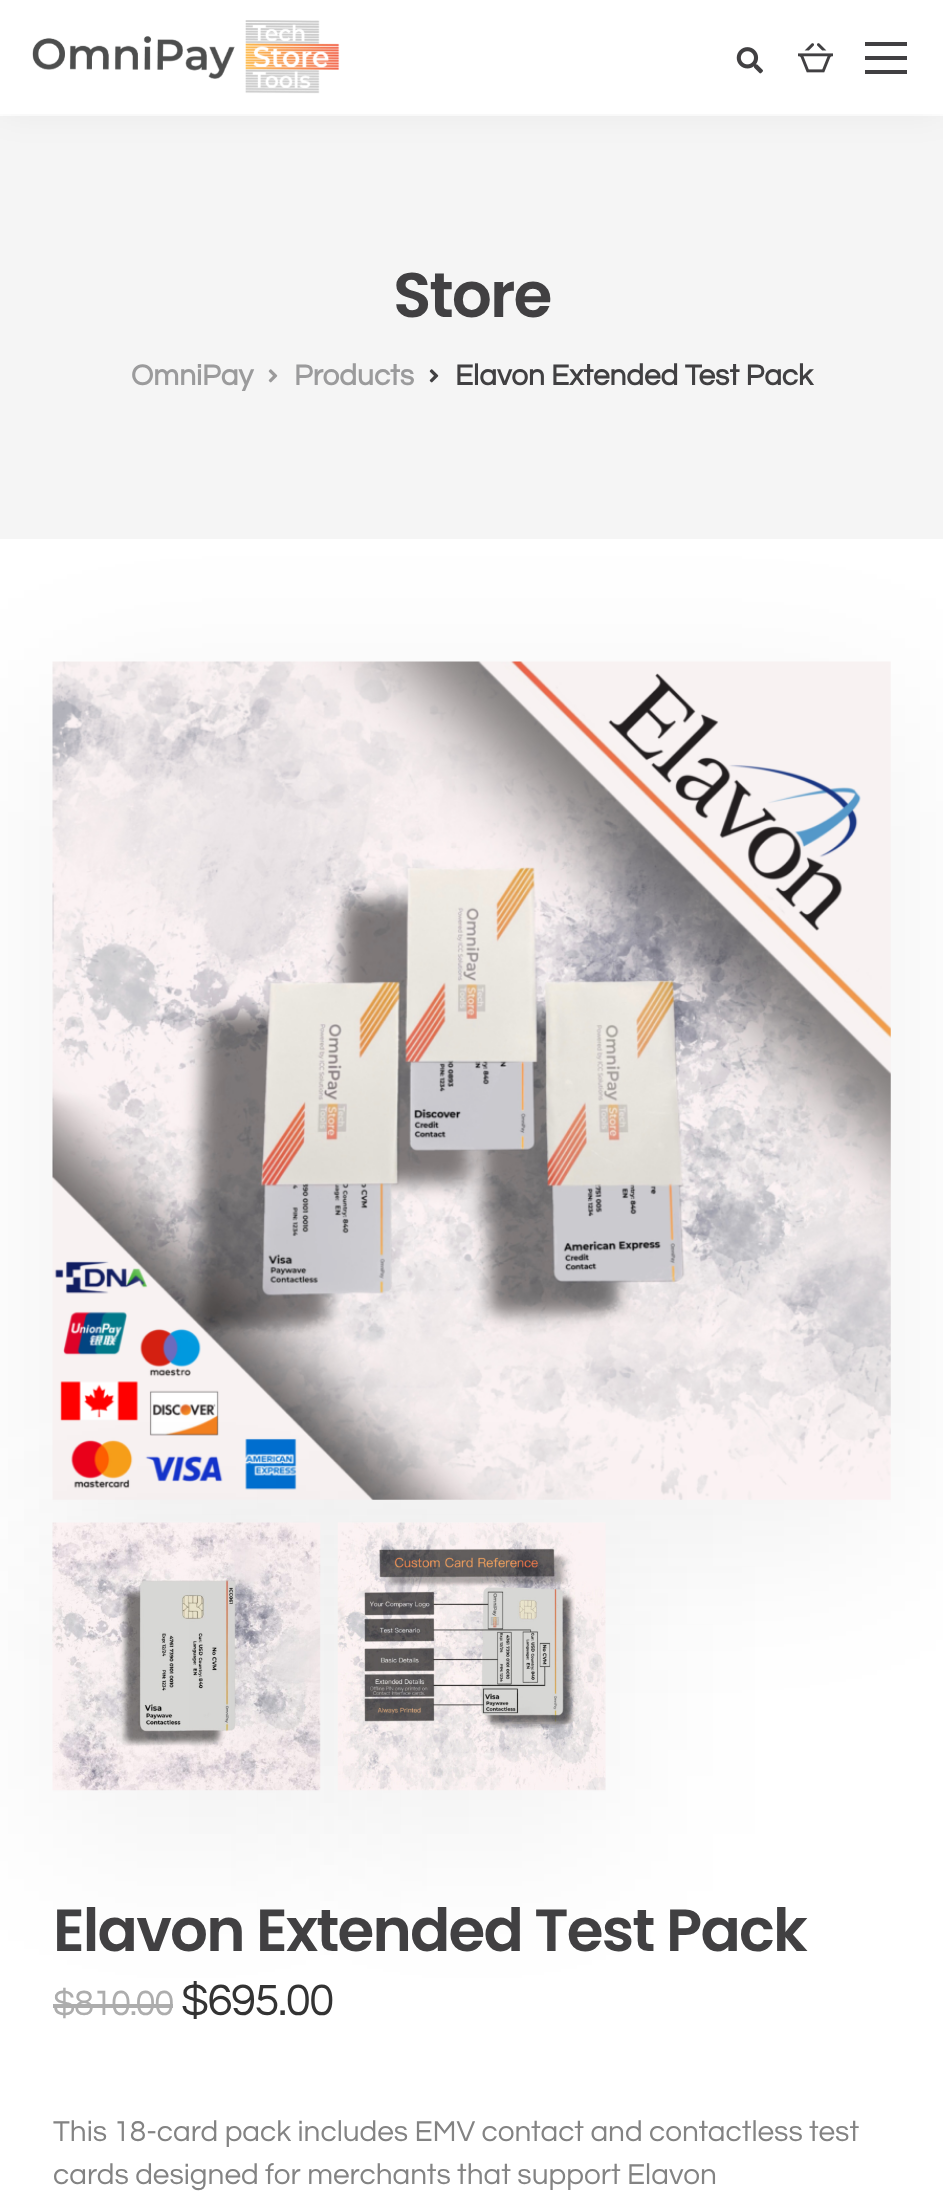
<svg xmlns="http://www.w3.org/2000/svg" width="943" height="2210">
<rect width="100%" height="100%" fill="#fff"/>
<rect y="116" width="943" height="423" fill="#f5f5f5"/>
<rect width="943" height="114" fill="#0000000d" filter="blur(17.5px)"/>
<rect width="943" height="114" fill="#fff"/>
<image x="32" y="20" width="308" height="74" href="media/1.png"/>
<image x="736" y="47" width="27" height="27" href="media/2.png"/>
<image x="798" y="43" width="35" height="30" href="media/3.png"/>
<rect x="865" y="70" width="42" height="4" fill="#414042"/>
<rect x="865" y="42" width="42" height="4" fill="#414042"/>
<rect x="865" y="56" width="42" height="4" fill="#414042"/>
<text x="393" y="317" style="font-family:Poppins;font-size:63px;font-weight:600;letter-spacing:-2px;fill:#414042">Store</text>
<text x="131" y="385" style="font-family:Questrial;font-size:29.75px;font-weight:bold;fill:#9b9b9c">OmniPay</text>
<image x="268" y="369" width="10" height="14" href="media/4.png"/>
<text x="294" y="385" style="font-family:Questrial;font-size:29.75px;font-weight:bold;fill:#9b9b9c">Products</text>
<image x="429" y="369" width="10" height="14" href="media/5.png"/>
<text x="455" y="385" style="font-family:Questrial;font-size:29.75px;font-weight:bold;fill:#414042">Elavon Extended Test Pack</text>
<rect x="53" y="705" width="838" height="839" fill="#0000000f" filter="blur(86px)"/>
<image x="52" y="661" width="839" height="839" href="media/6.png"/>
<rect x="53" y="1566" width="267" height="268" fill="#0000000f" filter="blur(86px)"/>
<image x="52" y="1522" width="269" height="269" href="media/7.png"/>
<rect x="338" y="1566" width="268" height="268" fill="#0000000f" filter="blur(86px)"/>
<image x="337" y="1522" width="269" height="269" href="media/8.png"/>
<text x="53" y="1951" style="font-family:Poppins;font-size:59.5px;font-weight:600;letter-spacing:-1.8px;fill:#414042">Elavon Extended Test Pack</text>
<text x="53" y="2015" style="font-family:Questrial;font-size:36.5px;letter-spacing:-1.5px;fill:#adadad">$810.00</text>
<rect x="53" y="2004" width="120" height="4" fill="#adadad"/>
<text x="181" y="2015" style="font-family:Questrial;font-size:45.5px;letter-spacing:-1.5px;fill:#333">$695.00</text>
<text x="53" y="2141" style="font-family:Questrial;font-size:29.75px;fill:#838383">This 18-card pack includes EMV contact and contactless test</text>
<text x="53" y="2184" style="font-family:Questrial;font-size:29.75px;fill:#838383">cards designed for merchants that support Elavon</text>
</svg>
